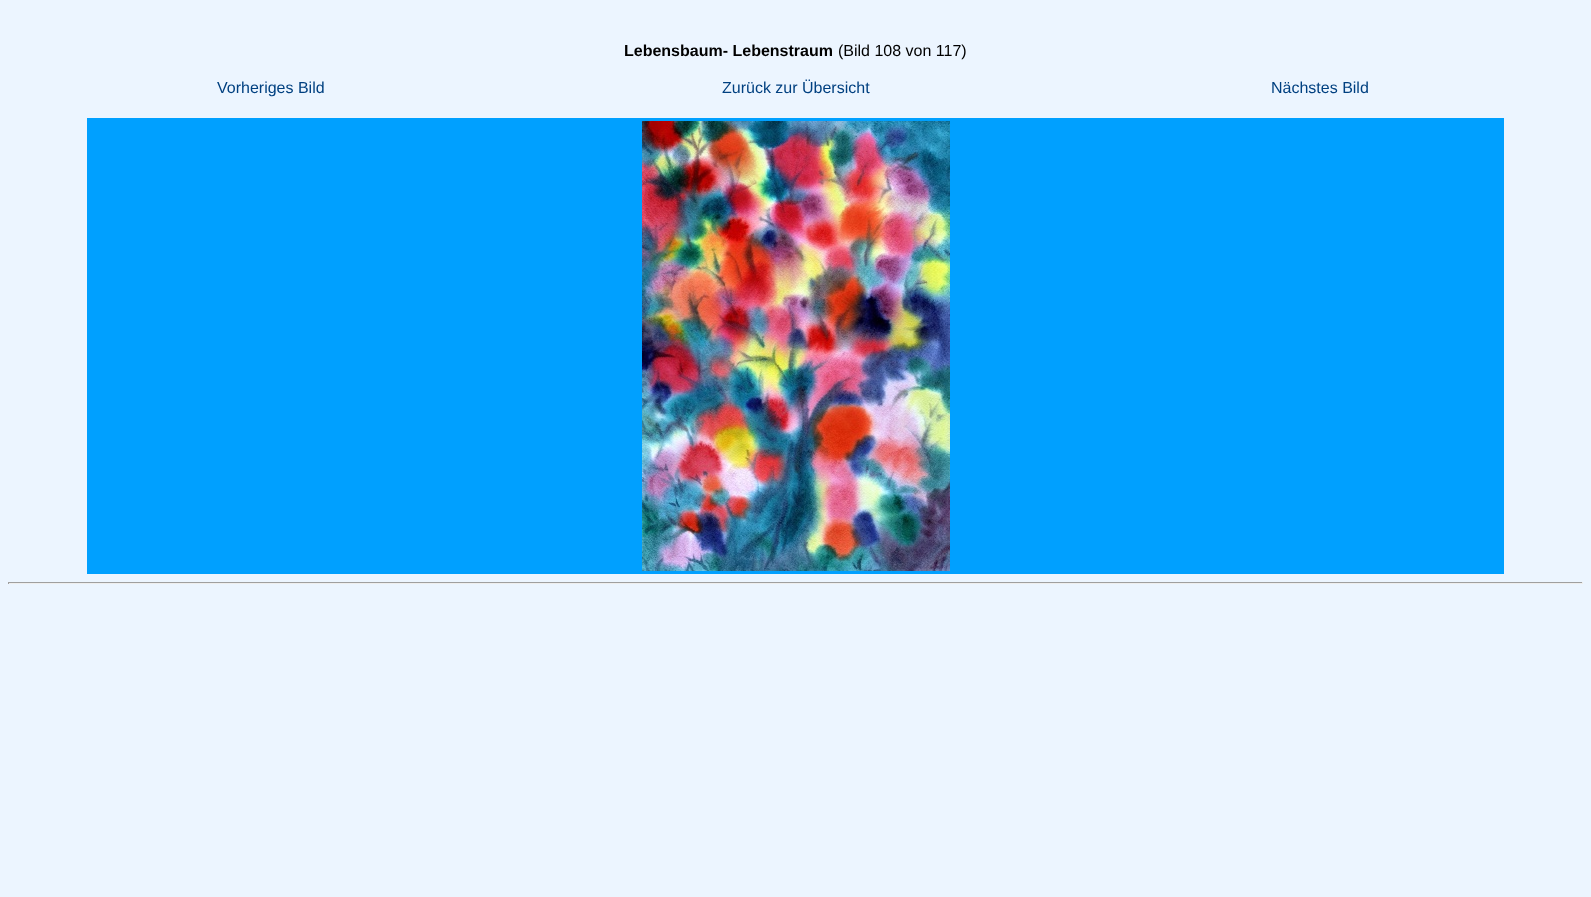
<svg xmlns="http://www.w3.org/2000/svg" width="1591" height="897">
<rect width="100%" height="100%" fill="#ecf5ff"/>
<text x="624" y="56" style="font-family:Liberation Sans;font-size:16px;font-weight:bold;fill:#000">Lebensbaum- Lebenstraum</text>
<text x="838" y="56" style="font-family:Liberation Sans;font-size:16px;fill:#000">(Bild 108 von 117)</text>
<text x="217" y="93" style="font-family:Liberation Sans;font-size:16px;fill:#004080">Vorheriges Bild</text>
<text x="722" y="93" style="font-family:Liberation Sans;font-size:16px;fill:#004080">Zurück zur Übersicht</text>
<text x="1271" y="93" style="font-family:Liberation Sans;font-size:16px;fill:#004080">Nächstes Bild</text>
<rect x="87" y="118" width="1417" height="456" fill="#00a0ff"/>
<image x="642" y="121" width="308" height="450" href="media/1.png"/>
<rect x="8" y="582" width="1575" height="1" fill="#9f9f9f"/>
<rect x="1582" y="582" width="1" height="2" fill="#eee"/>
<rect x="8" y="583" width="1575" height="1" fill="#eee"/>
<rect x="8" y="582" width="1" height="2" fill="#9f9f9f"/>
</svg>
